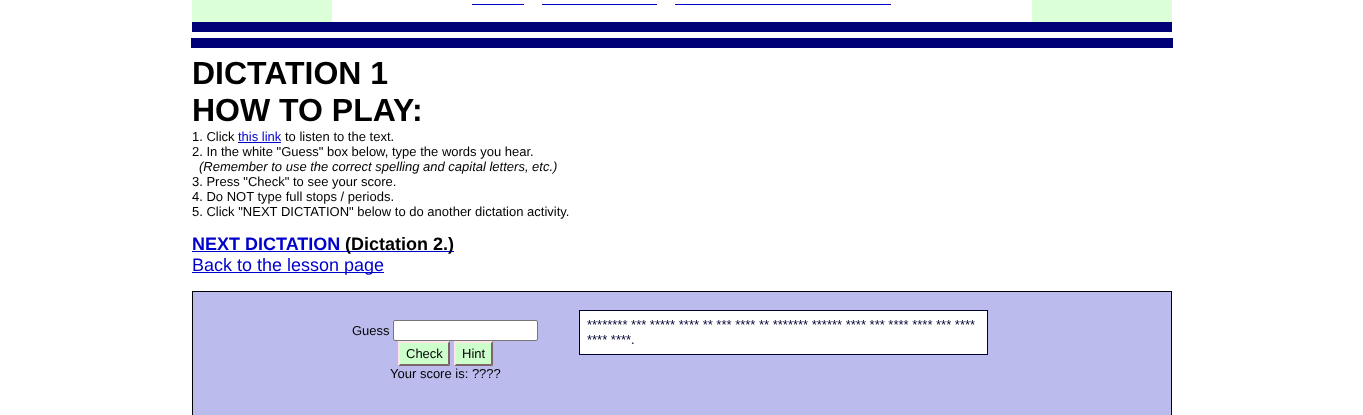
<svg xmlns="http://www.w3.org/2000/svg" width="1363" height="415">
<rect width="100%" height="100%" fill="#fff"/>
<rect x="192" width="140" height="22" fill="#dbffd6"/>
<rect x="472" y="4" width="52" height="1" fill="#00c"/>
<rect x="542" y="4" width="115" height="1" fill="#00c"/>
<rect x="675" y="4" width="216" height="1" fill="#00c"/>
<rect x="1032" width="140" height="22" fill="#dbffd6"/>
<rect x="192" y="22" width="980" height="10" fill="#007"/>
<rect x="191" y="38" width="982" height="10" fill="#007"/>
<text x="192" y="84" style="font-family:Liberation Sans;font-size:32px;font-weight:bold;fill:#000">DICTATION 1</text>
<text x="192" y="121" style="font-family:Liberation Sans;font-size:32px;font-weight:bold;fill:#000">HOW TO PLAY:</text>
<text x="192" y="141" style="font-family:Liberation Sans;font-size:13px;fill:#000">1. Click</text>
<text x="238" y="141" style="font-family:Liberation Sans;font-size:13px;fill:#00c">this link</text>
<rect x="238" y="142" width="43" height="1" fill="#00c"/>
<text x="285" y="141" style="font-family:Liberation Sans;font-size:13px;fill:#000">to listen to the text.</text>
<text x="192" y="156" style="font-family:Liberation Sans;font-size:13px;fill:#000">2. In the white "Guess" box below, type the words you hear.</text>
<text x="199" y="171" style="font-family:Liberation Sans;font-size:13px;font-style:italic;fill:#000">(Remember to use the correct spelling and capital letters, etc.)</text>
<text x="192" y="186" style="font-family:Liberation Sans;font-size:13px;fill:#000">3. Press "Check" to see your score.</text>
<text x="192" y="201" style="font-family:Liberation Sans;font-size:13px;fill:#000">4. Do NOT type full stops / periods.</text>
<text x="192" y="216" style="font-family:Liberation Sans;font-size:13px;fill:#000">5. Click "NEXT DICTATION" below to do another dictation activity.</text>
<text x="192" y="250" style="font-family:Liberation Sans;font-size:18px;font-weight:bold;fill:#00c">NEXT DICTATION</text>
<rect x="192" y="251" width="262" height="1" fill="#00c"/>
<text x="345" y="250" style="font-family:Liberation Sans;font-size:18px;font-weight:bold;fill:#000">(Dictation 2.)</text>
<rect x="192" y="272" width="192" height="1" fill="#00c"/>
<text x="192" y="271" style="font-family:Liberation Sans;font-size:18px;fill:#00c">Back to the lesson page</text>
<rect x="192.5" y="291.5" width="979" height="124" fill="#bbe" stroke="#000"/>
<text x="352" y="335" style="font-family:Liberation Sans;font-size:13px;fill:#000">Guess</text>
<rect x="393.5" y="320.5" width="144" height="20" rx="1.5" fill="#fff" stroke="#767676"/>
<rect x="398" y="341" width="52" height="25" fill="#cfc"/>
<path d="M398 341h52l-2 2h-48z" fill="#ffe5e5"/>
<path d="M450 341v25l-2-2v-21z" fill="#7f6666"/>
<path d="M450 366h-52l2-2h48z" fill="#7f6666"/>
<path d="M398 366v-25l2 2v21z" fill="#ffe5e5"/>
<text x="406" y="358" style="font-family:Liberation Sans;font-size:13px;fill:#000">Check</text>
<rect x="454" y="341" width="39" height="25" fill="#cfc"/>
<path d="M454 341h39l-2 2h-35z" fill="#ffe5e5"/>
<path d="M493 341v25l-2-2v-21z" fill="#7f6666"/>
<path d="M493 366h-39l2-2h35z" fill="#7f6666"/>
<path d="M454 366v-25l2 2v21z" fill="#ffe5e5"/>
<text x="462" y="358" style="font-family:Liberation Sans;font-size:13px;fill:#000">Hint</text>
<text x="390" y="378" style="font-family:Liberation Sans;font-size:13px;fill:#000">Your score is: ????</text>
<rect x="579.5" y="310.5" width="408" height="44" fill="#fff" stroke="#003"/>
<text x="587" y="329" style="font-family:Liberation Sans;font-size:13px;fill:#003">******** *** ***** **** ** *** **** ** ******* ****** **** *** **** **** *** ****</text>
<text x="587" y="344" style="font-family:Liberation Sans;font-size:13px;fill:#003">**** ****.</text>
</svg>
